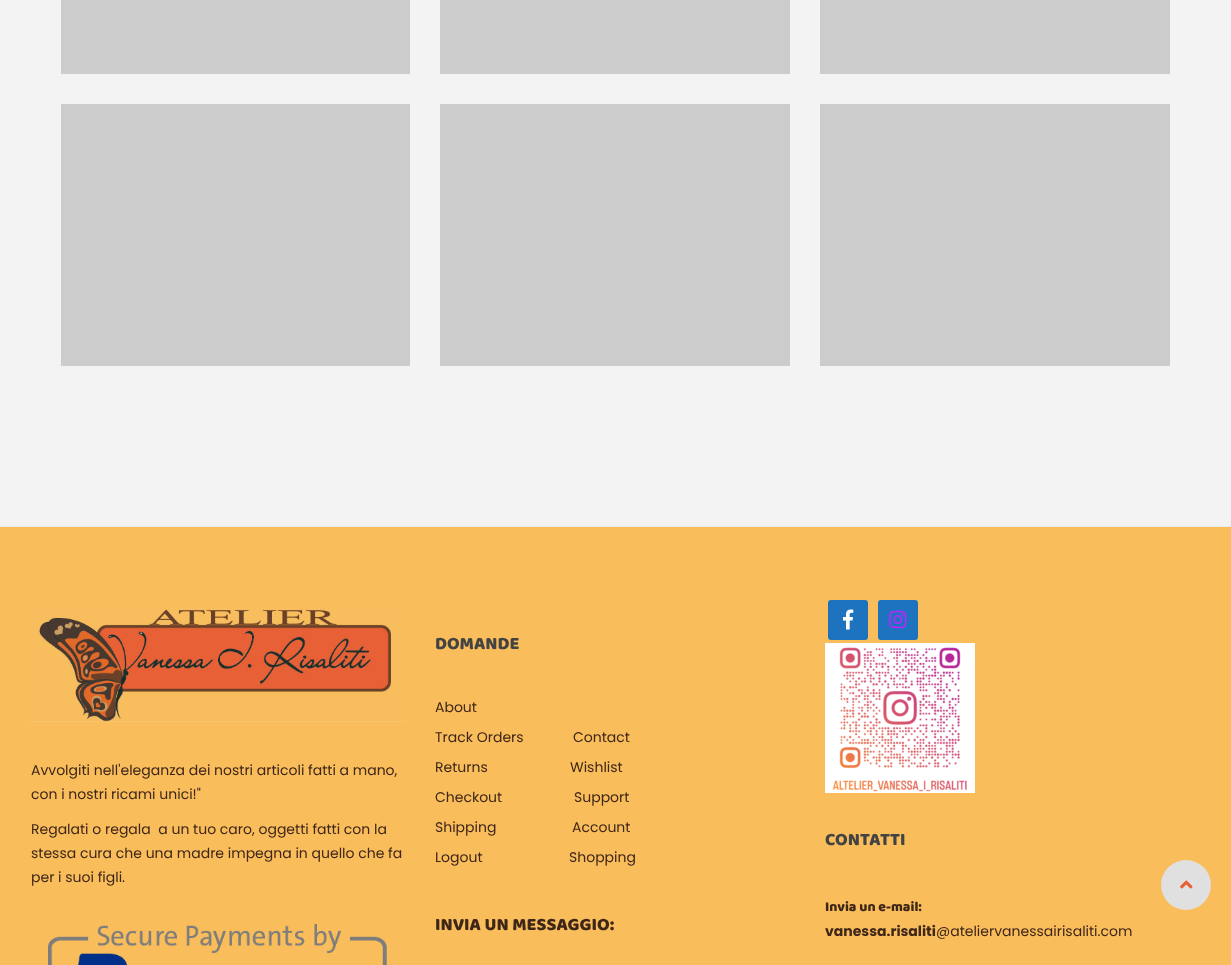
<svg xmlns="http://www.w3.org/2000/svg" width="1231" height="965">
<rect width="100%" height="100%" fill="#f9bd5b"/>
<rect width="1231" height="526" fill="#f3f3f3"/>
<rect x="61" width="349" height="74" fill="#ccc"/>
<rect x="440" width="350" height="74" fill="#ccc"/>
<rect x="820" width="350" height="74" fill="#ccc"/>
<rect x="61" y="104" width="349" height="262" fill="#ccc"/>
<rect x="440" y="104" width="350" height="262" fill="#ccc"/>
<rect x="820" y="104" width="350" height="262" fill="#ccc"/>
<rect y="526" width="1231" height="1" fill="#ebebeb"/>
<image x="31" y="608" width="374" height="114" href="media/1.png"/>
<text x="31" y="775" style="font-family:Poppins;font-size:14px;fill:#3e2619">Avvolgiti nell'eleganza dei nostri articoli fatti a mano,</text>
<text x="31" y="799" style="font-family:Poppins;font-size:14px;fill:#3e2619">con i nostri ricami unici!"</text>
<text x="31" y="834" style="font-family:Poppins;font-size:14px;fill:#3e2619" xml:space="preserve">Regalati o regala  a un tuo caro, oggetti fatti con la</text>
<text x="31" y="858" style="font-family:Poppins;font-size:14px;fill:#3e2619">stessa cura che una madre impegna in quello che fa</text>
<text x="31" y="882" style="font-family:Poppins;font-size:14px;fill:#3e2619">per i suoi figli.</text>
<image x="48" y="924" width="339" height="41" href="media/2.png"/>
<text x="435" y="649" style="font-family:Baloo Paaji;font-size:18px;fill:#434343">DOMANDE</text>
<text x="435" y="712" style="font-family:Poppins;font-size:14px;fill:#3e2619">About</text>
<text x="435" y="742" style="font-family:Poppins;font-size:14px;fill:#3e2619">Track Orders</text>
<text x="573" y="742" style="font-family:Poppins;font-size:14px;fill:#3e2619">Contact</text>
<text x="435" y="772" style="font-family:Poppins;font-size:14px;fill:#3e2619">Returns</text>
<text x="570" y="772" style="font-family:Poppins;font-size:14px;fill:#3e2619">Wishlist</text>
<text x="435" y="802" style="font-family:Poppins;font-size:14px;fill:#3e2619">Checkout</text>
<text x="574" y="802" style="font-family:Poppins;font-size:14px;fill:#3e2619">Support</text>
<text x="435" y="832" style="font-family:Poppins;font-size:14px;fill:#3e2619">Shipping</text>
<text x="572" y="832" style="font-family:Poppins;font-size:14px;fill:#3e2619">Account</text>
<text x="435" y="862" style="font-family:Poppins;font-size:14px;fill:#3e2619">Logout</text>
<text x="569" y="862" style="font-family:Poppins;font-size:14px;fill:#3e2619">Shopping</text>
<text x="435" y="930" style="font-family:Baloo Paaji;font-size:18px;fill:#3e2619">INVIA UN MESSAGGIO:</text>
<rect x="828" y="600" width="40" height="40" rx="3" fill="#1e73be"/>
<image x="843" y="609" width="11" height="21" href="media/3.png"/>
<rect x="878" y="600" width="40" height="40" rx="3" fill="#1e73be"/>
<image x="889" y="610" width="18" height="19" href="media/4.png"/>
<image x="825" y="643" width="150" height="150" href="media/5.png"/>
<text x="825" y="845" style="font-family:Baloo Paaji;font-size:18px;fill:#434343">CONTATTI</text>
<text x="825" y="911" style="font-family:Baloo Paaji;font-size:14px;fill:#3e2619">Invia un e-mail:</text>
<text x="825" y="936" style="font-family:Poppins;font-size:14px;font-weight:bold;fill:#3e2619">vanessa.risaliti</text>
<text x="936" y="936" style="font-family:Poppins;font-size:14px;fill:#3e2619">@ateliervanessairisaliti.com</text>
<circle cx="1186" cy="885" r="25" fill="#e0e0e0"/>
<image x="1180" y="880" width="13" height="9" href="media/6.png"/>
</svg>
